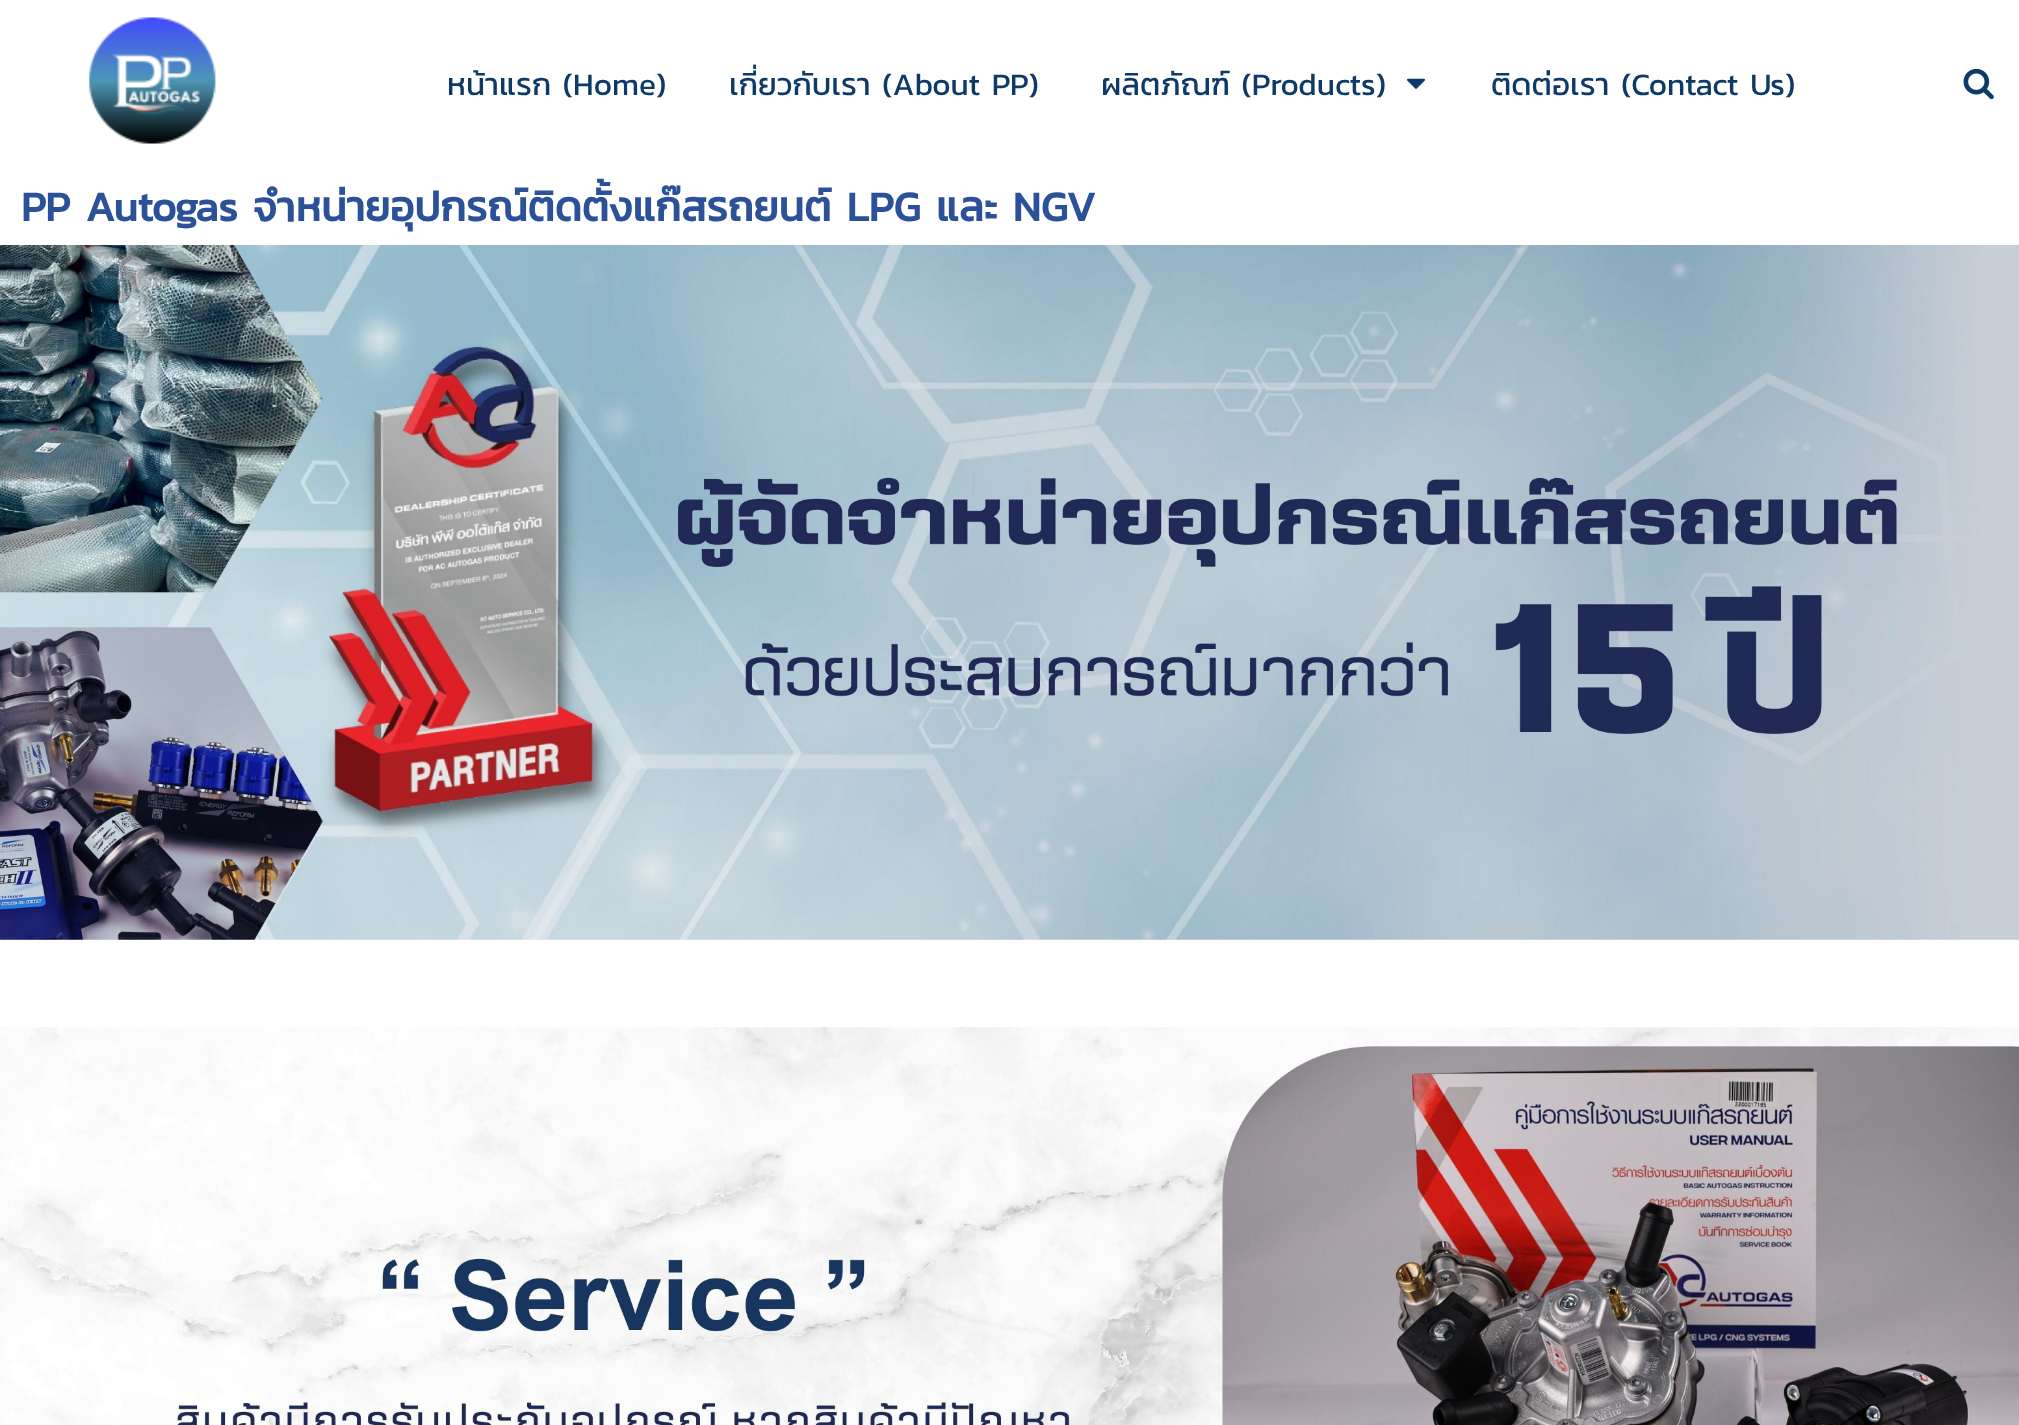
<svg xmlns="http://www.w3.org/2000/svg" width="2019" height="1425">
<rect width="100%" height="100%" fill="#fff"/>
<image x="88" y="17" width="128" height="127" href="media/1.png"/>
<text x="447" y="95" style="font-family:Kanit;font-size:31.5px;fill:#0e3a69">หน้าแรก (Home)</text>
<text x="729" y="95" style="font-family:Kanit;font-size:31.5px;fill:#0e3a69">เกี่ยวกับเรา (About PP)</text>
<text x="1101" y="95" style="font-family:Kanit;font-size:31.5px;fill:#0e3a69">ผลิตภัณฑ์ (Products)</text>
<image x="1407" y="78" width="18" height="11" href="media/2.png"/>
<text x="1491" y="95" style="font-family:Kanit;font-size:31.5px;fill:#0e3a69">ติดต่อเรา (Contact Us)</text>
<image x="1963" y="68" width="31" height="32" href="media/3.png"/>
<text x="21" y="221" style="font-family:Kanit;font-size:42px;font-weight:bold;fill:#2b5199">PP Autogas จำหน่ายอุปกรณ์ติดตั้งแก๊สรถยนต์ LPG และ NGV</text>
<image x="0" y="245" width="2019" height="695" href="media/4.png"/>
<image x="0" y="1027" width="2019" height="398" href="media/5.png"/>
</svg>
